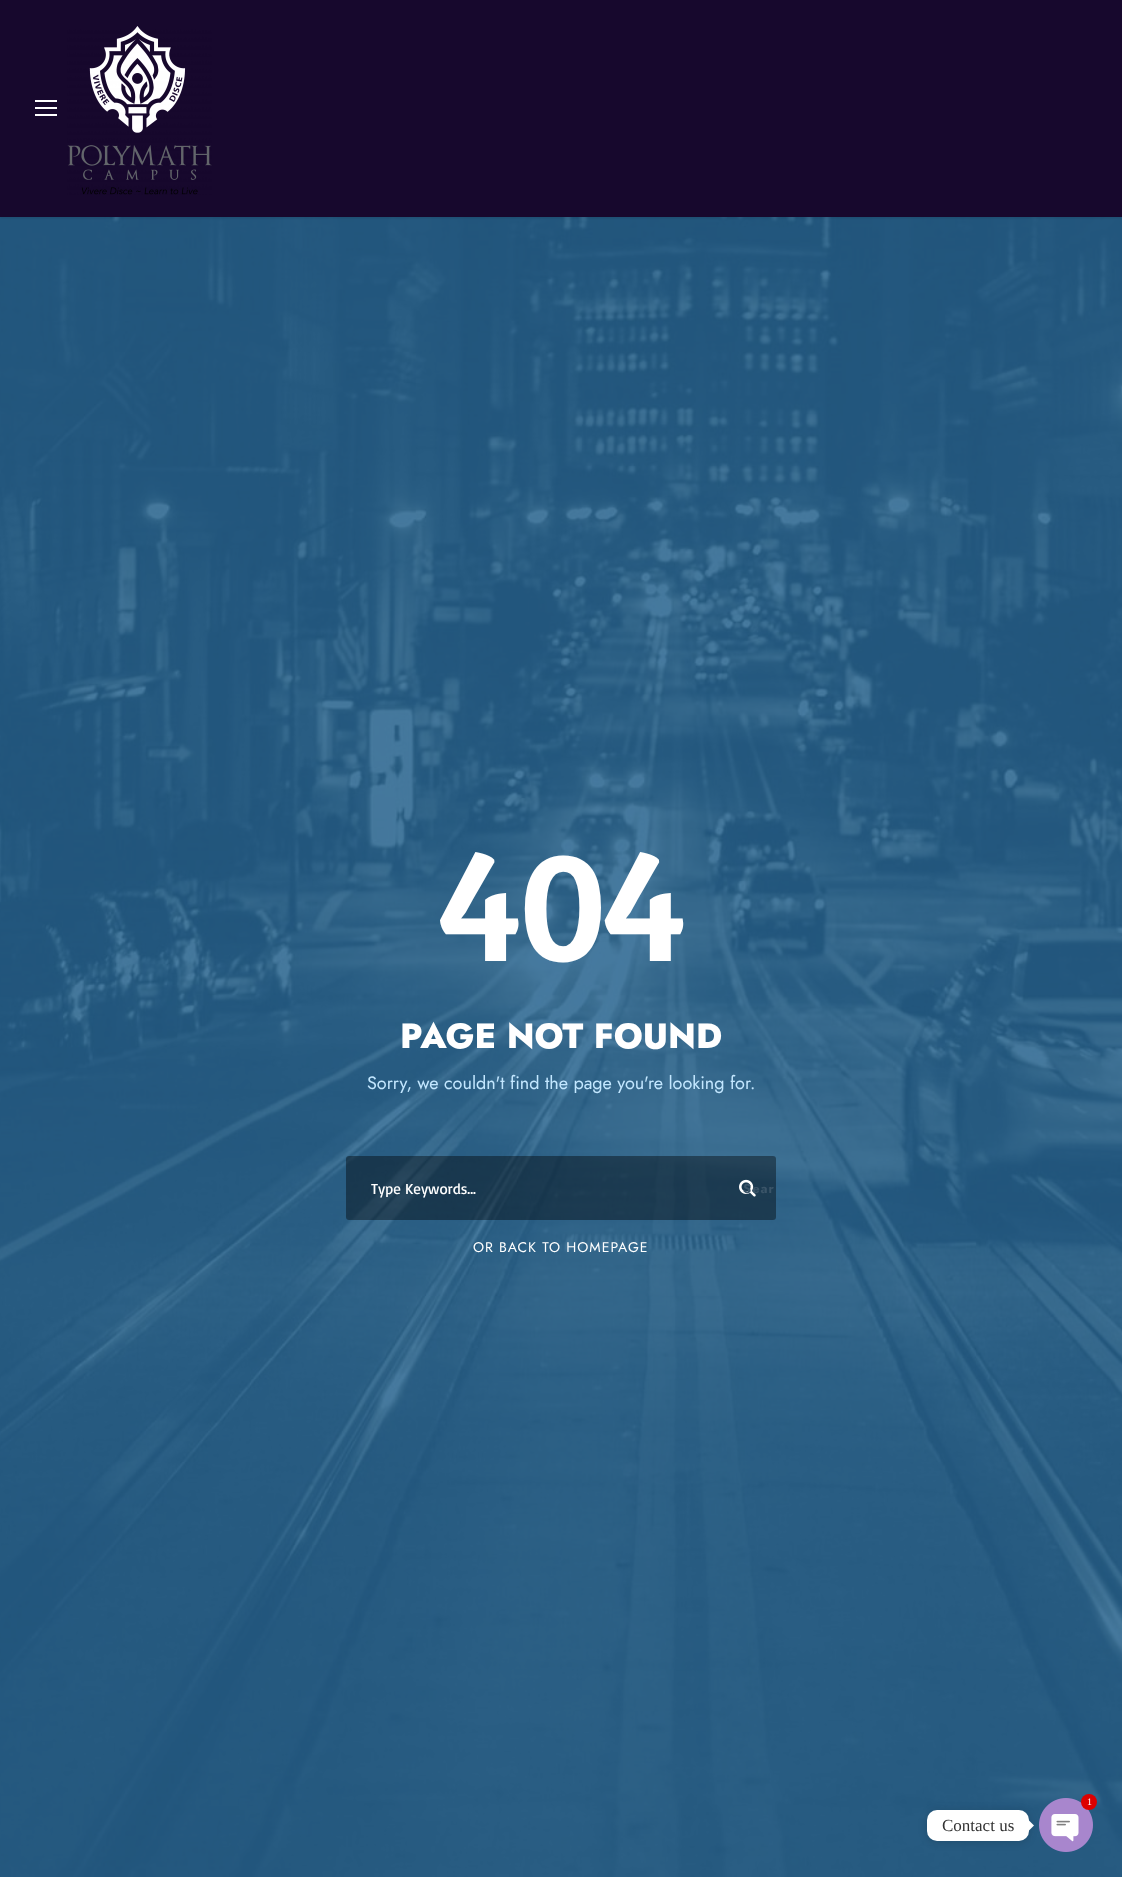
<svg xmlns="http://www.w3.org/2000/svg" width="1122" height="1877">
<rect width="100%" height="100%" fill="#23618e"/>
<image x="0" y="217" width="1122" height="1660" href="media/2.png"/>
<rect y="1" width="1122" height="217" fill="#0000001a" filter="blur(1px)"/>
<rect width="1122" height="217" fill="#17082d"/>
<rect x="35" y="100" width="22" height="2" fill="#fff"/>
<rect x="35" y="107" width="22" height="2" fill="#fff"/>
<rect x="35" y="114" width="22" height="2" fill="#fff"/>
<image x="67" y="26" width="145" height="169" href="media/1.png"/>
<text x="438" y="961" style="font-family:Basic;font-size:150px;font-weight:bold;fill:#fff">404</text>
<text x="400" y="1048" style="font-family:Jost;font-size:35px;font-weight:800;fill:#fff">PAGE NOT FOUND</text>
<text x="367" y="1089" style="font-family:Jost;font-size:18px;fill:#c3e7ff">Sorry, we couldn't find the page you're looking for.</text>
<rect x="346" y="1156" width="430" height="64" rx="3" fill="#00000066"/>
<text x="371" y="1194" style="font-family:Basic;font-size:15px;fill:#fff">Type Keywords...</text>
<image x="739" y="1179" width="17" height="18" href="media/3.png"/>
<text x="743" y="1193" style="font-family:Jost;font-size:13px;font-weight:bold;letter-spacing:1px;fill:#3a5468">Sear</text>
<text x="473" y="1252" style="font-family:Jost;font-size:14px;letter-spacing:1px;fill:#fff">OR BACK TO HOMEPAGE</text>
<rect x="927" y="1811" width="102" height="31" rx="10" fill="#00000026" filter="blur(4px)"/>
<image x="1039" y="1798" width="54" height="54" href="media/4.png"/>
<circle cx="1089" cy="1802" r="8" fill="#d00"/>
<text x="1087" y="1805" style="font-family:Liberation Serif;font-size:10px;fill:#fff">1</text>
<rect x="927" y="1810" width="102" height="31" rx="10" fill="#fff"/>
<text x="942" y="1831" style="font-family:Liberation Serif;font-size:17px;fill:#333">Contact us</text>
<path d="M1029 1830.5v-10l5 5z" fill="#fff"/>
</svg>
